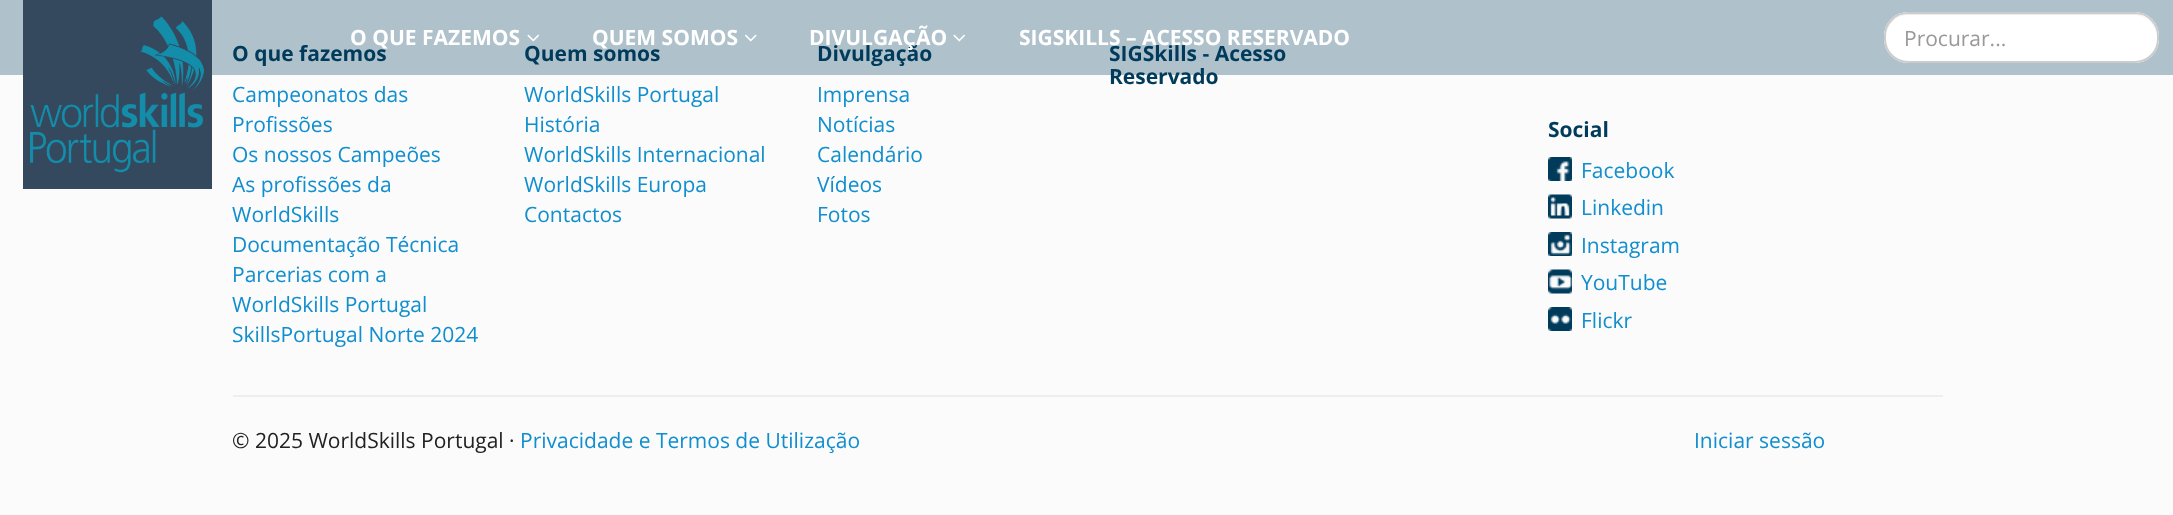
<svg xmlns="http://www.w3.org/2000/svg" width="2173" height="515">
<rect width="100%" height="100%" fill="#fbfbfb"/>
<text x="232" y="61" style="font-family:Open Sans;font-size:21px;font-weight:bold;fill:#003b5c">O que fazemos</text>
<text x="524" y="61" style="font-family:Open Sans;font-size:21px;font-weight:bold;fill:#003b5c">Quem somos</text>
<text x="817" y="61" style="font-family:Open Sans;font-size:21px;font-weight:bold;fill:#003b5c">Divulgação</text>
<text x="1109" y="61" style="font-family:Open Sans;font-size:21px;font-weight:bold;fill:#003b5c">SIGSkills - Acesso</text>
<text x="1109" y="84" style="font-family:Open Sans;font-size:21px;font-weight:bold;fill:#003b5c">Reservado</text>
<rect width="2173" height="75" fill="#003b5c4d"/>
<rect x="23" width="189" height="189" fill="#34495e"/>
<image x="30" y="16" width="174" height="157" href="media/1.png"/>
<text x="350" y="45" style="font-family:Open Sans;font-size:21px;font-weight:bold;fill:#fff">O QUE FAZEMOS</text>
<image x="527" y="34" width="12" height="8" href="media/2.png"/>
<text x="592" y="45" style="font-family:Open Sans;font-size:21px;font-weight:bold;fill:#fff">QUEM SOMOS</text>
<image x="745" y="34" width="12" height="8" href="media/3.png"/>
<text x="809" y="45" style="font-family:Open Sans;font-size:21px;font-weight:bold;fill:#fff">DIVULGAÇÃO</text>
<image x="953" y="34" width="12" height="8" href="media/2.png"/>
<text x="1019" y="45" style="font-family:Open Sans;font-size:21px;font-weight:bold;fill:#fff">SIGSKILLS – ACESSO RESERVADO</text>
<rect x="1884" y="12" width="275" height="51" rx="24" fill="#fff"/>
<path d="M1908 15h226c13 0 23 10 23 23c0-32-41-24-61-24h-150c-19 0-60-8-60 24c0-13 10-23 22-23z" fill="#ececec"/>
<rect x="1885" y="13" width="273" height="49" rx="23" fill="none" stroke="#ccc" stroke-width="2"/>
<text x="1904" y="46" style="font-family:Open Sans;font-size:21px;fill:#999">Procurar...</text>
<text x="232" y="102" style="font-family:Open Sans;font-size:21px;fill:#118ece">Campeonatos das</text>
<text x="232" y="132" style="font-family:Open Sans;font-size:21px;fill:#118ece">Profissões</text>
<text x="232" y="162" style="font-family:Open Sans;font-size:21px;fill:#118ece">Os nossos Campeões</text>
<text x="232" y="192" style="font-family:Open Sans;font-size:21px;fill:#118ece">As profissões da</text>
<text x="232" y="222" style="font-family:Open Sans;font-size:21px;fill:#118ece">WorldSkills</text>
<text x="232" y="252" style="font-family:Open Sans;font-size:21px;fill:#118ece">Documentação Técnica</text>
<text x="232" y="282" style="font-family:Open Sans;font-size:21px;fill:#118ece">Parcerias com a</text>
<text x="232" y="312" style="font-family:Open Sans;font-size:21px;fill:#118ece">WorldSkills Portugal</text>
<text x="232" y="342" style="font-family:Open Sans;font-size:21px;fill:#118ece">SkillsPortugal Norte 2024</text>
<text x="524" y="102" style="font-family:Open Sans;font-size:21px;fill:#118ece">WorldSkills Portugal</text>
<text x="524" y="132" style="font-family:Open Sans;font-size:21px;fill:#118ece">História</text>
<text x="524" y="162" style="font-family:Open Sans;font-size:21px;fill:#118ece">WorldSkills Internacional</text>
<text x="524" y="192" style="font-family:Open Sans;font-size:21px;fill:#118ece">WorldSkills Europa</text>
<text x="524" y="222" style="font-family:Open Sans;font-size:21px;fill:#118ece">Contactos</text>
<text x="817" y="102" style="font-family:Open Sans;font-size:21px;fill:#118ece">Imprensa</text>
<text x="817" y="132" style="font-family:Open Sans;font-size:21px;fill:#118ece">Notícias</text>
<text x="817" y="162" style="font-family:Open Sans;font-size:21px;fill:#118ece">Calendário</text>
<text x="817" y="192" style="font-family:Open Sans;font-size:21px;fill:#118ece">Vídeos</text>
<text x="817" y="222" style="font-family:Open Sans;font-size:21px;fill:#118ece">Fotos</text>
<text x="1548" y="137" style="font-family:Open Sans;font-size:21px;font-weight:bold;fill:#003b5c">Social</text>
<image x="1548" y="157" width="24" height="24" href="media/4.png"/>
<text x="1581" y="178" style="font-family:Open Sans;font-size:21px;fill:#118ece">Facebook</text>
<image x="1548" y="194" width="24" height="25" href="media/5.png"/>
<text x="1581" y="215" style="font-family:Open Sans;font-size:21px;fill:#118ece">Linkedin</text>
<image x="1548" y="232" width="24" height="24" href="media/6.png"/>
<text x="1581" y="253" style="font-family:Open Sans;font-size:21px;fill:#118ece">Instagram</text>
<image x="1548" y="269" width="24" height="25" href="media/7.png"/>
<text x="1581" y="290" style="font-family:Open Sans;font-size:21px;fill:#118ece">YouTube</text>
<image x="1548" y="307" width="24" height="24" href="media/8.png"/>
<text x="1581" y="328" style="font-family:Open Sans;font-size:21px;fill:#118ece">Flickr</text>
<rect x="233" y="395" width="1710" height="2" fill="#eee"/>
<text x="232" y="448" style="font-family:Open Sans;font-size:21px;fill:#222">© 2025 WorldSkills Portugal ·</text>
<text x="520" y="448" style="font-family:Open Sans;font-size:21px;fill:#118ece">Privacidade e Termos de Utilização</text>
<text x="1694" y="448" style="font-family:Open Sans;font-size:21px;fill:#118ece">Iniciar sessão</text>
</svg>
